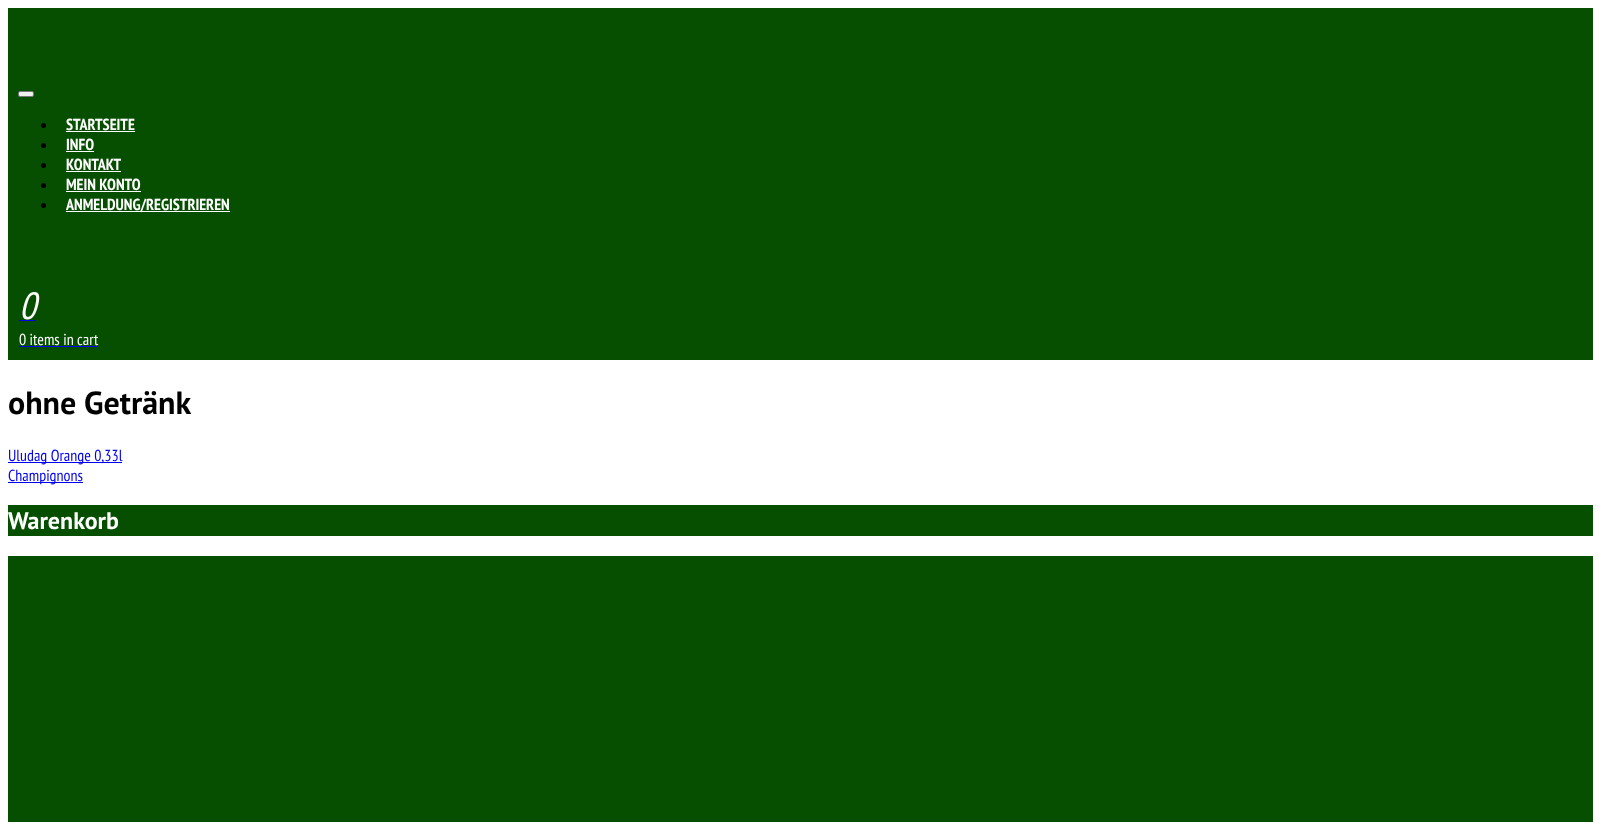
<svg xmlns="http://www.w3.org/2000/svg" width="1601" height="822">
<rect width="100%" height="100%" fill="#fff"/>
<rect x="8" y="8" width="1585" height="352" fill="#064f00"/>
<rect x="18.5" y="91.5" width="15" height="5" rx="1.5" fill="#efefef" stroke="#767676"/>
<circle cx="43.5" cy="125.5" r="2.5" fill="#000"/>
<text x="66" y="130" style="font-family:PT Sans Narrow;font-size:16px;font-weight:bold;fill:#fff">STARTSEITE</text>
<rect x="66" y="131" width="69" height="1" fill="#fff"/>
<circle cx="43.5" cy="145.5" r="2.5" fill="#000"/>
<text x="66" y="150" style="font-family:PT Sans Narrow;font-size:16px;font-weight:bold;fill:#fff">INFO</text>
<rect x="66" y="151" width="28" height="1" fill="#fff"/>
<circle cx="43.5" cy="165.5" r="2.5" fill="#000"/>
<text x="66" y="170" style="font-family:PT Sans Narrow;font-size:16px;font-weight:bold;fill:#fff">KONTAKT</text>
<rect x="66" y="171" width="55" height="1" fill="#fff"/>
<circle cx="43.5" cy="185.5" r="2.5" fill="#000"/>
<text x="66" y="190" style="font-family:PT Sans Narrow;font-size:16px;font-weight:bold;fill:#fff">MEIN KONTO</text>
<rect x="66" y="191" width="75" height="1" fill="#fff"/>
<circle cx="43.5" cy="205.5" r="2.5" fill="#000"/>
<rect x="66" y="211" width="164" height="1" fill="#fff"/>
<text x="66" y="210" style="font-family:PT Sans Narrow;font-size:16px;font-weight:bold;fill:#fff">ANMELDUNG/REGISTRIEREN</text>
<text x="19" y="319" style="font-family:PT Sans Narrow;font-size:38px;font-style:italic;fill:#fff">0</text>
<rect x="19" y="320" width="17" height="1" fill="#00e"/>
<text x="19" y="345" style="font-family:PT Sans Narrow;font-size:16px;fill:#fff">0 items in cart</text>
<rect x="19" y="346" width="79" height="1" fill="#00e"/>
<text x="8" y="414" style="font-family:PT Sans;font-size:32px;font-weight:bold;fill:#000">ohne Getränk</text>
<rect x="8" y="462" width="114" height="1" fill="#00e"/>
<text x="8" y="461" style="font-family:PT Sans Narrow;font-size:16px;fill:#00e">Uludag Orange 0,33l</text>
<rect x="8" y="482" width="75" height="1" fill="#00e"/>
<text x="8" y="481" style="font-family:PT Sans Narrow;font-size:16px;fill:#00e">Champignons</text>
<rect x="8" y="505" width="1585" height="31" fill="#064f00"/>
<text x="8" y="529" style="font-family:PT Sans;font-size:24px;font-weight:bold;fill:#fff">Warenkorb</text>
<rect x="8" y="556" width="1585" height="266" fill="#064f00"/>
</svg>
